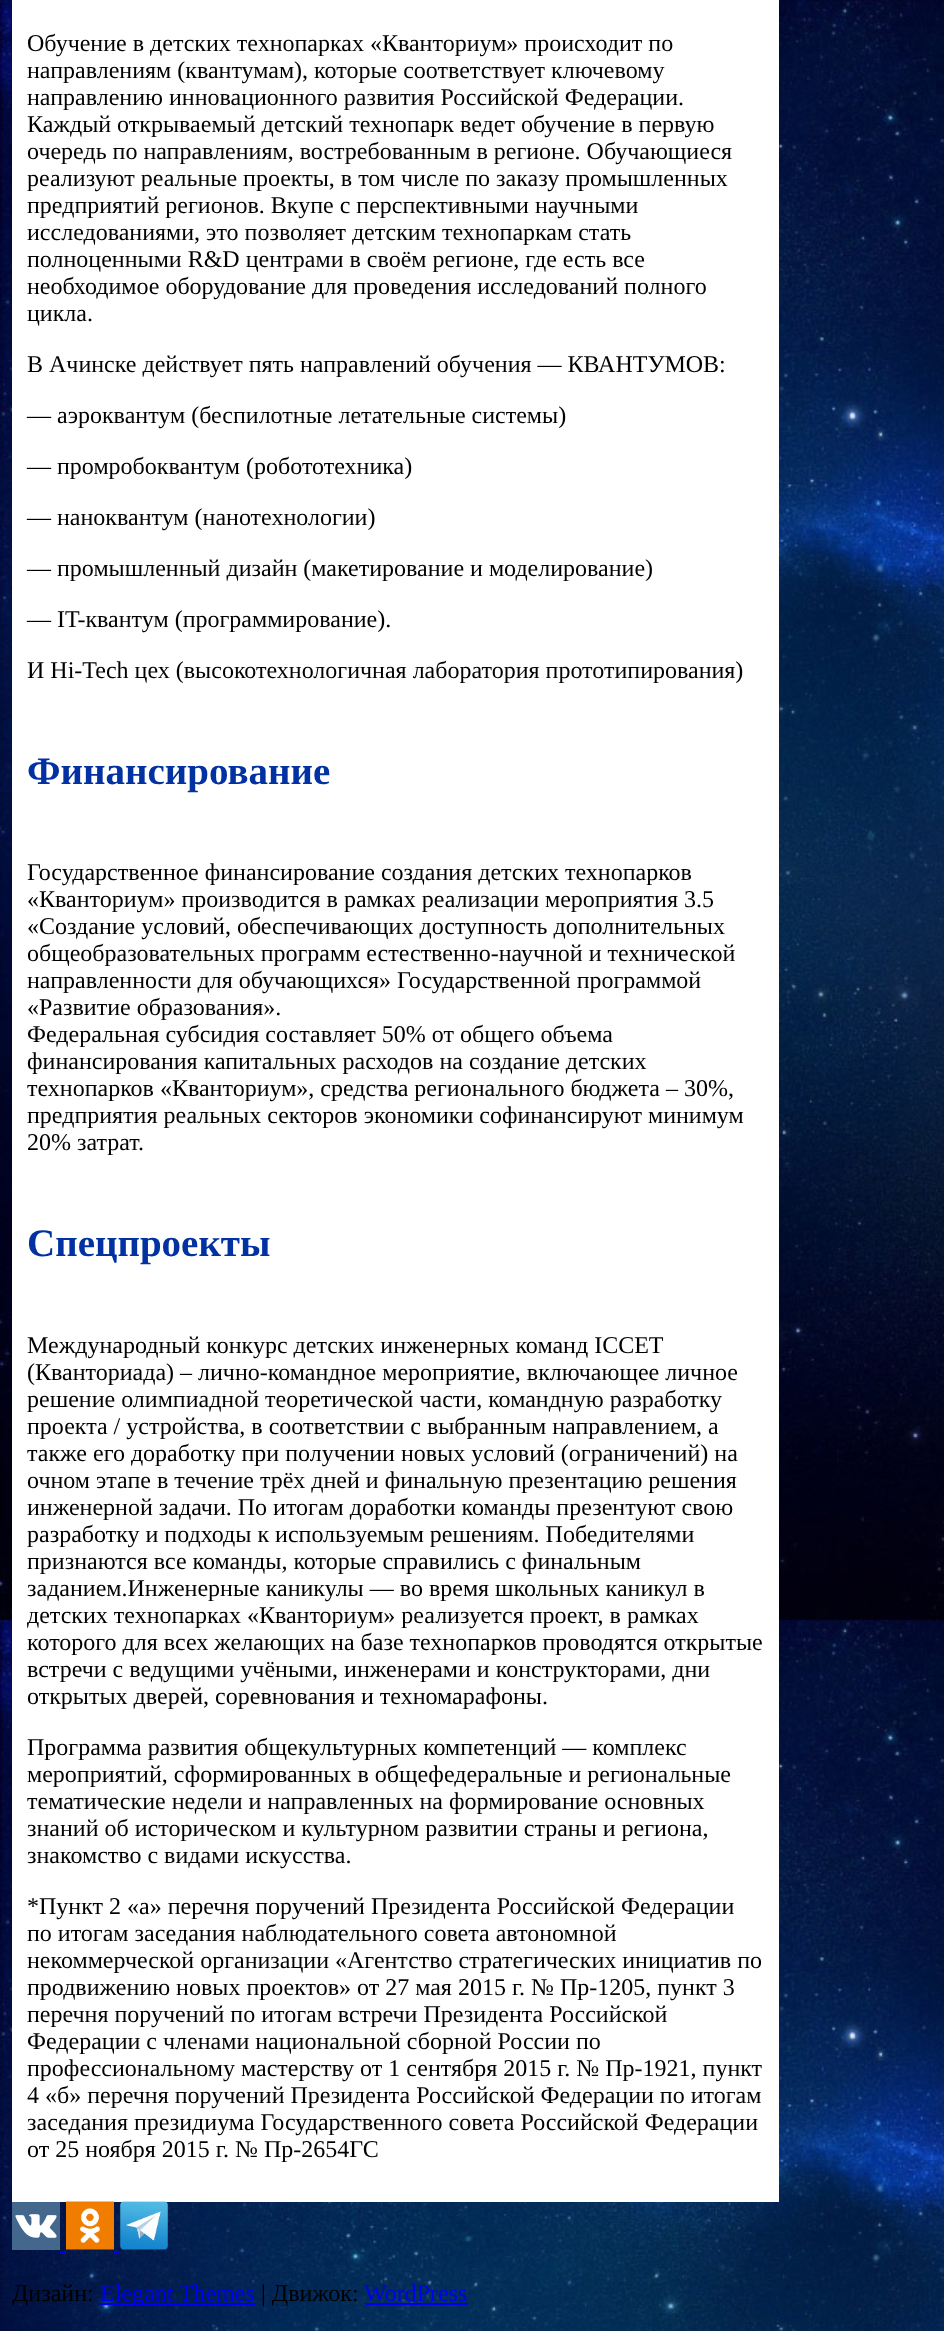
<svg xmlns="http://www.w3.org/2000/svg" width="944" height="2331">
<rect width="100%" height="100%" fill="#fff"/>
<image x="0" y="0" width="944" height="2331" href="media/1.png"/>
<rect x="12" width="767" height="2202" fill="#fff"/>
<text x="27" y="51" style="font-family:Liberation Serif;font-size:24px;fill:#000">Обучение в детских технопарках «Кванториум» происходит по</text>
<text x="27" y="78" style="font-family:Liberation Serif;font-size:24px;fill:#000">направлениям (квантумам), которые соответствует ключевому</text>
<text x="27" y="105" style="font-family:Liberation Serif;font-size:24px;fill:#000">направлению инновационного развития Российской Федерации.</text>
<text x="27" y="132" style="font-family:Liberation Serif;font-size:24px;fill:#000">Каждый открываемый детский технопарк ведет обучение в первую</text>
<text x="27" y="159" style="font-family:Liberation Serif;font-size:24px;fill:#000">очередь по направлениям, востребованным в регионе. Обучающиеся</text>
<text x="27" y="186" style="font-family:Liberation Serif;font-size:24px;fill:#000">реализуют реальные проекты, в том числе по заказу промышленных</text>
<text x="27" y="213" style="font-family:Liberation Serif;font-size:24px;fill:#000">предприятий регионов. Вкупе с перспективными научными</text>
<text x="27" y="240" style="font-family:Liberation Serif;font-size:24px;fill:#000">исследованиями, это позволяет детским технопаркам стать</text>
<text x="27" y="267" style="font-family:Liberation Serif;font-size:24px;fill:#000">полноценными R&amp;D центрами в своём регионе, где есть все</text>
<text x="27" y="294" style="font-family:Liberation Serif;font-size:24px;fill:#000">необходимое оборудование для проведения исследований полного</text>
<text x="27" y="321" style="font-family:Liberation Serif;font-size:24px;fill:#000">цикла.</text>
<text x="27" y="372" style="font-family:Liberation Serif;font-size:24px;fill:#000">В Ачинске действует пять направлений обучения — КВАНТУМОВ:</text>
<text x="27" y="423" style="font-family:Liberation Serif;font-size:24px;fill:#000">— аэроквантум (беспилотные летательные системы)</text>
<text x="27" y="474" style="font-family:Liberation Serif;font-size:24px;fill:#000">— промробоквантум (робототехника)</text>
<text x="27" y="525" style="font-family:Liberation Serif;font-size:24px;fill:#000">— наноквантум (нанотехнологии)</text>
<text x="27" y="576" style="font-family:Liberation Serif;font-size:24px;fill:#000">— промышленный дизайн (макетирование и моделирование)</text>
<text x="27" y="627" style="font-family:Liberation Serif;font-size:24px;fill:#000">— IT-квантум (программирование).</text>
<text x="27" y="678" style="font-family:Liberation Serif;font-size:24px;fill:#000">И Hi-Tech цех (высокотехнологичная лаборатория прототипирования)</text>
<text x="27" y="784" style="font-family:Liberation Serif;font-size:39px;font-weight:bold;fill:#0231a1">Финансирование</text>
<text x="27" y="880" style="font-family:Liberation Serif;font-size:24px;fill:#000">Государственное финансирование создания детских технопарков</text>
<text x="27" y="907" style="font-family:Liberation Serif;font-size:24px;fill:#000">«Кванториум» производится в рамках реализации мероприятия 3.5</text>
<text x="27" y="934" style="font-family:Liberation Serif;font-size:24px;fill:#000">«Создание условий, обеспечивающих доступность дополнительных</text>
<text x="27" y="961" style="font-family:Liberation Serif;font-size:24px;fill:#000">общеобразовательных программ естественно-научной и технической</text>
<text x="27" y="988" style="font-family:Liberation Serif;font-size:24px;fill:#000">направленности для обучающихся» Государственной программой</text>
<text x="27" y="1015" style="font-family:Liberation Serif;font-size:24px;fill:#000">«Развитие образования».</text>
<text x="27" y="1042" style="font-family:Liberation Serif;font-size:24px;fill:#000">Федеральная субсидия составляет 50% от общего объема</text>
<text x="27" y="1069" style="font-family:Liberation Serif;font-size:24px;fill:#000">финансирования капитальных расходов на создание детских</text>
<text x="27" y="1096" style="font-family:Liberation Serif;font-size:24px;fill:#000">технопарков «Кванториум», средства регионального бюджета – 30%,</text>
<text x="27" y="1123" style="font-family:Liberation Serif;font-size:24px;fill:#000">предприятия реальных секторов экономики софинансируют минимум</text>
<text x="27" y="1150" style="font-family:Liberation Serif;font-size:24px;fill:#000">20% затрат.</text>
<text x="27" y="1256" style="font-family:Liberation Serif;font-size:39px;font-weight:bold;fill:#0231a1">Спецпроекты</text>
<text x="27" y="1353" style="font-family:Liberation Serif;font-size:24px;fill:#000">Международный конкурс детских инженерных команд ICCET</text>
<text x="27" y="1380" style="font-family:Liberation Serif;font-size:24px;fill:#000">(Кванториада) – лично-командное мероприятие, включающее личное</text>
<text x="27" y="1407" style="font-family:Liberation Serif;font-size:24px;fill:#000">решение олимпиадной теоретической части, командную разработку</text>
<text x="27" y="1434" style="font-family:Liberation Serif;font-size:24px;fill:#000">проекта / устройства, в соответствии с выбранным направлением, а</text>
<text x="27" y="1461" style="font-family:Liberation Serif;font-size:24px;fill:#000">также его доработку при получении новых условий (ограничений) на</text>
<text x="27" y="1488" style="font-family:Liberation Serif;font-size:24px;fill:#000">очном этапе в течение трёх дней и финальную презентацию решения</text>
<text x="27" y="1515" style="font-family:Liberation Serif;font-size:24px;fill:#000">инженерной задачи. По итогам доработки команды презентуют свою</text>
<text x="27" y="1542" style="font-family:Liberation Serif;font-size:24px;fill:#000">разработку и подходы к используемым решениям. Победителями</text>
<text x="27" y="1569" style="font-family:Liberation Serif;font-size:24px;fill:#000">признаются все команды, которые справились с финальным</text>
<text x="27" y="1596" style="font-family:Liberation Serif;font-size:24px;fill:#000">заданием.Инженерные каникулы — во время школьных каникул в</text>
<text x="27" y="1623" style="font-family:Liberation Serif;font-size:24px;fill:#000">детских технопарках «Кванториум» реализуется проект, в рамках</text>
<text x="27" y="1650" style="font-family:Liberation Serif;font-size:24px;fill:#000">которого для всех желающих на базе технопарков проводятся открытые</text>
<text x="27" y="1677" style="font-family:Liberation Serif;font-size:24px;fill:#000">встречи с ведущими учёными, инженерами и конструкторами, дни</text>
<text x="27" y="1704" style="font-family:Liberation Serif;font-size:24px;fill:#000">открытых дверей, соревнования и техномарафоны.</text>
<text x="27" y="1755" style="font-family:Liberation Serif;font-size:24px;fill:#000">Программа развития общекультурных компетенций — комплекс</text>
<text x="27" y="1782" style="font-family:Liberation Serif;font-size:24px;fill:#000">мероприятий, сформированных в общефедеральные и региональные</text>
<text x="27" y="1809" style="font-family:Liberation Serif;font-size:24px;fill:#000">тематические недели и направленных на формирование основных</text>
<text x="27" y="1836" style="font-family:Liberation Serif;font-size:24px;fill:#000">знаний об историческом и культурном развитии страны и региона,</text>
<text x="27" y="1863" style="font-family:Liberation Serif;font-size:24px;fill:#000">знакомство с видами искусства.</text>
<text x="27" y="1914" style="font-family:Liberation Serif;font-size:24px;fill:#000">*Пункт 2 «а» перечня поручений Президента Российской Федерации</text>
<text x="27" y="1941" style="font-family:Liberation Serif;font-size:24px;fill:#000">по итогам заседания наблюдательного совета автономной</text>
<text x="27" y="1968" style="font-family:Liberation Serif;font-size:24px;fill:#000">некоммерческой организации «Агентство стратегических инициатив по</text>
<text x="27" y="1995" style="font-family:Liberation Serif;font-size:24px;fill:#000">продвижению новых проектов» от 27 мая 2015 г. № Пр-1205, пункт 3</text>
<text x="27" y="2022" style="font-family:Liberation Serif;font-size:24px;fill:#000">перечня поручений по итогам встречи Президента Российской</text>
<text x="27" y="2049" style="font-family:Liberation Serif;font-size:24px;fill:#000">Федерации с членами национальной сборной России по</text>
<text x="27" y="2076" style="font-family:Liberation Serif;font-size:24px;fill:#000">профессиональному мастерству от 1 сентября 2015 г. № Пр-1921, пункт</text>
<text x="27" y="2103" style="font-family:Liberation Serif;font-size:24px;fill:#000">4 «б» перечня поручений Президента Российской Федерации по итогам</text>
<text x="27" y="2130" style="font-family:Liberation Serif;font-size:24px;fill:#000">заседания президиума Государственного совета Российской Федерации</text>
<text x="27" y="2157" style="font-family:Liberation Serif;font-size:24px;fill:#000">от 25 ноября 2015 г. № Пр-2654ГС</text>
<image x="12" y="2202" width="48" height="48" href="media/2.png"/>
<image x="66" y="2201" width="48" height="49" href="media/3.png"/>
<image x="120" y="2201" width="48" height="49" href="media/4.png"/>
<rect x="60" y="2252" width="6" height="2" fill="#00e"/>
<rect x="114" y="2252" width="6" height="2" fill="#00e"/>
<text x="12" y="2301" style="font-family:Liberation Serif;font-size:24px;fill:#000">Дизайн:</text>
<rect x="99" y="2303" width="156" height="2" fill="#00e"/>
<text x="100" y="2301" style="font-family:Liberation Serif;font-size:24px;fill:#00e">Elegant Themes</text>
<text x="261" y="2301" style="font-family:Liberation Serif;font-size:24px;fill:#000">| Движок:</text>
<text x="364" y="2301" style="font-family:Liberation Serif;font-size:24px;fill:#00e">WordPress</text>
<rect x="365" y="2303" width="103" height="2" fill="#00e"/>
</svg>
